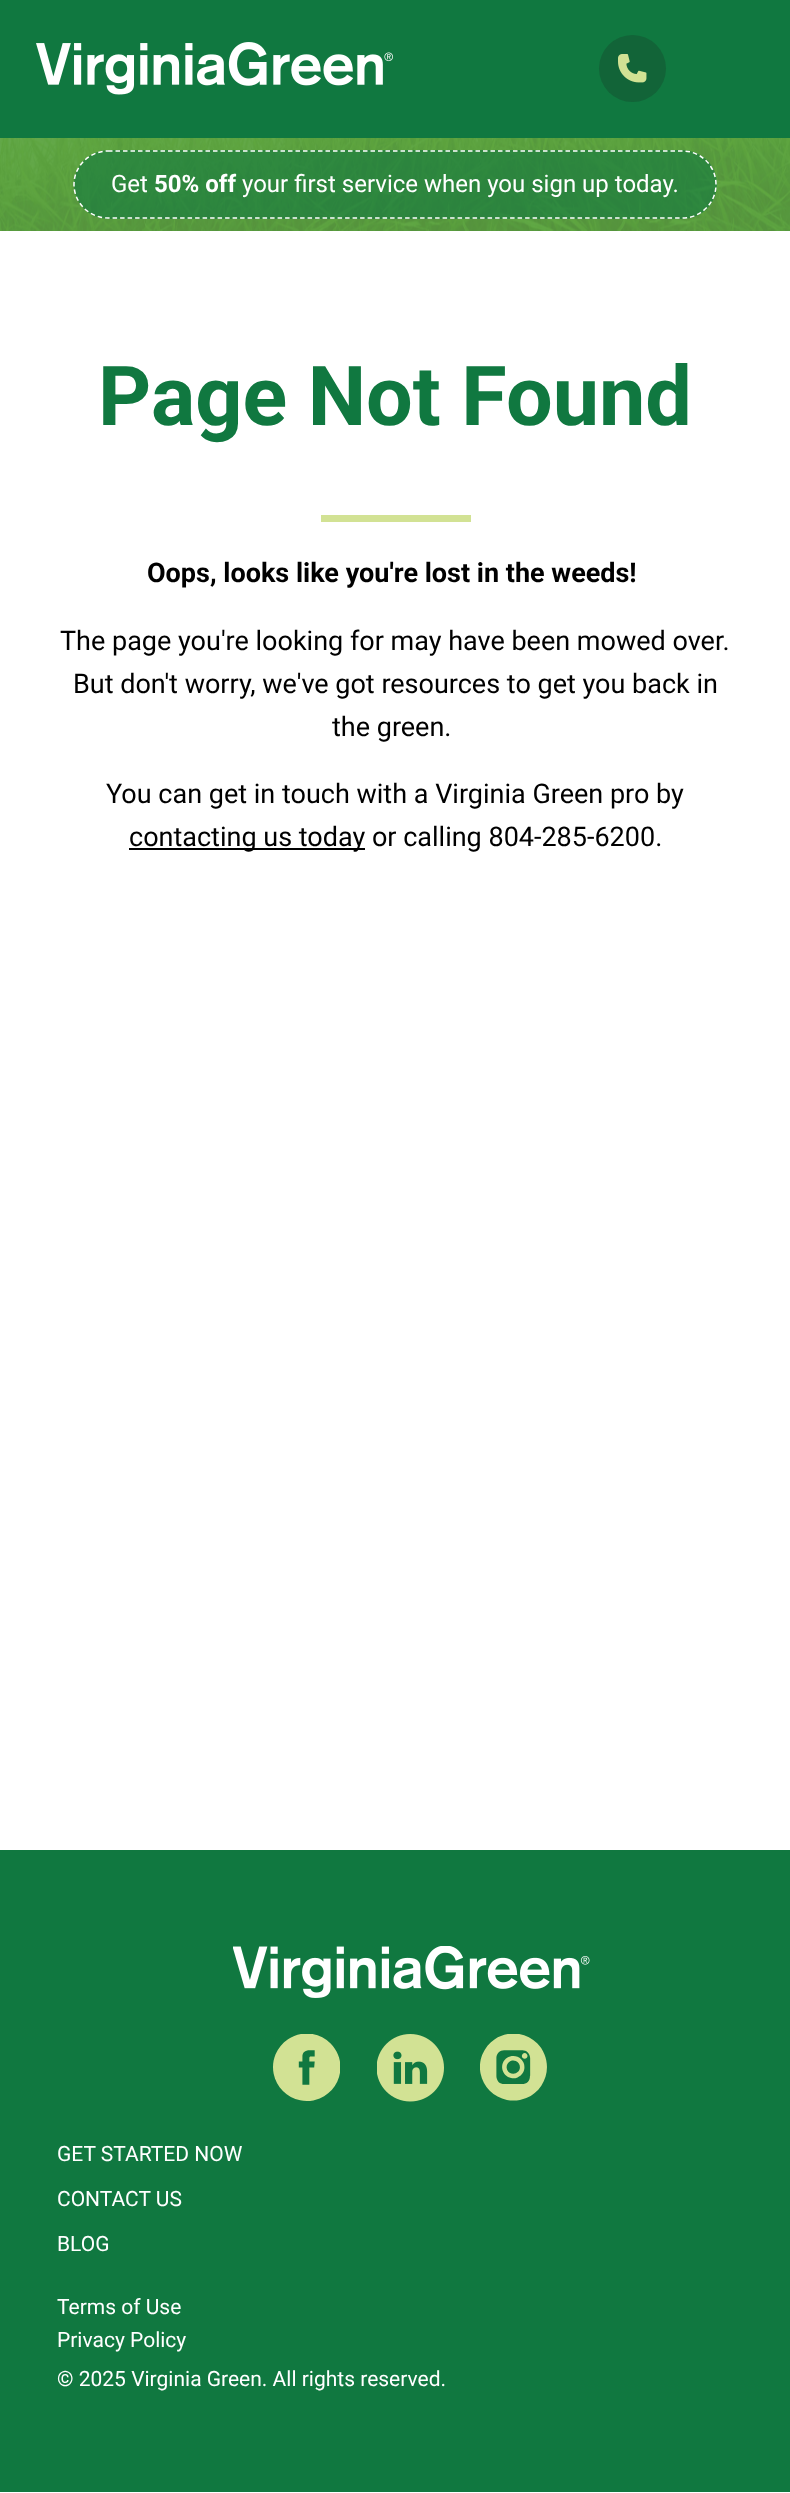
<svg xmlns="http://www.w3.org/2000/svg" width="790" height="2493">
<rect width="100%" height="100%" fill="#fff"/>
<rect width="790" height="138" fill="#107840"/>
<image x="36" y="42" width="357" height="53" href="media/1.png"/>
<circle cx="632.5" cy="68.5" r="33.5" fill="#126438"/>
<image x="618" y="54" width="29" height="29" href="media/2.png"/>
<image x="0" y="138" width="790" height="93" href="media/3.png"/>
<rect x="74" y="150" width="643" height="69" rx="34.5" fill="#10784099"/>
<path d="M108 151h574.5c18.5 0 33.5 15 33.5 33.5c0 18.5-15 33.5-33.5 33.5h-574.5c-18.5 0-34-15-34-33.5c0-18.5 15.5-33.5 34-33.5z" fill="none" stroke="#fff" stroke-width="1.5" stroke-dasharray="4.5 3"/>
<text x="111" y="192" style="font-family:Roboto;font-size:24px;fill:#fff">Get</text>
<text x="154" y="192" style="font-family:Roboto;font-size:24px;font-weight:bold;fill:#fff">50% off</text>
<text x="242" y="192" style="font-family:Roboto;font-size:24px;fill:#fff">your first service when you sign up today.</text>
<text x="98" y="425" style="font-family:Roboto;font-size:82.75px;font-weight:bold;fill:#107840">Page Not Found</text>
<rect x="321" y="515" width="150" height="7" fill="#d2e294"/>
<text x="147" y="582" style="font-family:Roboto;font-size:27px;font-weight:bold;fill:#000">Oops, looks like you're lost in the weeds!</text>
<text x="60" y="650" style="font-family:Roboto;font-size:27px;fill:#000">The page you're looking for may have been mowed over.</text>
<text x="73" y="693" style="font-family:Roboto;font-size:27px;fill:#000">But don't worry, we've got resources to get you back in</text>
<text x="332" y="736" style="font-family:Roboto;font-size:27px;fill:#000">the green.</text>
<text x="106" y="803" style="font-family:Roboto;font-size:27px;fill:#000">You can get in touch with a Virginia Green pro by</text>
<rect x="129" y="848" width="236" height="2" fill="#000"/>
<text x="129" y="846" style="font-family:Roboto;font-size:27px;fill:#000">contacting us today or calling 804-285-6200.</text>
<rect y="1850" width="790" height="642" fill="#107840"/>
<image x="233" y="1946" width="357" height="52" href="media/4.png"/>
<image x="273" y="2034" width="67" height="67" href="media/5.png"/>
<image x="377" y="2034" width="67" height="68" href="media/6.png"/>
<image x="480" y="2034" width="67" height="67" href="media/7.png"/>
<text x="57" y="2161" style="font-family:Roboto;font-size:21px;fill:#fff">GET STARTED NOW</text>
<text x="57" y="2206" style="font-family:Roboto;font-size:21px;fill:#fff">CONTACT US</text>
<text x="57" y="2251" style="font-family:Roboto;font-size:21px;fill:#fff">BLOG</text>
<text x="57" y="2314" style="font-family:Roboto;font-size:21px;fill:#fff">Terms of Use</text>
<text x="57" y="2347" style="font-family:Roboto;font-size:21px;fill:#fff">Privacy Policy</text>
<text x="57" y="2386" style="font-family:Roboto;font-size:21px;fill:#fff">© 2025 Virginia Green. All rights reserved.</text>
</svg>
